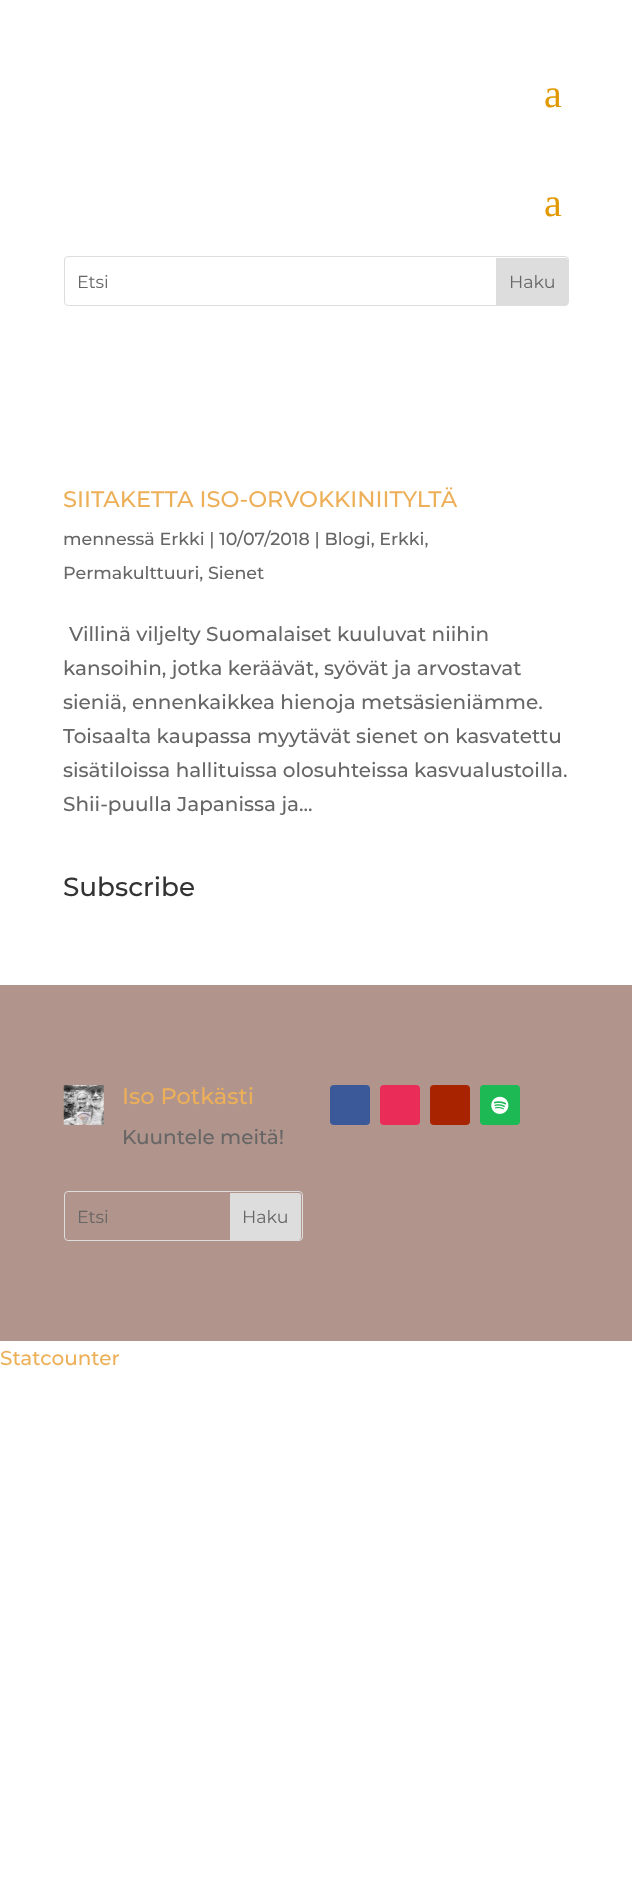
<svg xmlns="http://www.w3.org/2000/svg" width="632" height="1895">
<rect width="100%" height="100%" fill="#fff"/>
<text x="544" y="107" style="font-family:Liberation Serif;font-size:40px;fill:#e09900">a</text>
<text x="544" y="216" style="font-family:Liberation Serif;font-size:40px;fill:#e09900">a</text>
<rect x="64.5" y="256.5" width="504" height="49" rx="3.5" fill="none" stroke="#ddd"/>
<text x="77" y="288" style="font-family:Montserrat;font-size:17.5px;fill:#666">Etsi</text>
<path d="M496 258h69.5c1.5 0 2.5 1 2.5 2.5v42c0 1.5-1 2.5-2.5 2.5h-69.5z" fill="#ddd"/>
<text x="509" y="288" style="font-family:Montserrat;font-size:17.5px;fill:#666">Haku</text>
<text x="63" y="507" style="font-family:Montserrat;font-size:22.5px;font-weight:500;fill:#edb059">SIITAKETTA ISO-ORVOKKINIITYLTÄ</text>
<text x="63" y="545" style="font-family:Montserrat;font-size:17.5px;font-weight:500;fill:#666">mennessä Erkki | 10/07/2018 | Blogi, Erkki,</text>
<text x="63" y="579" style="font-family:Montserrat;font-size:17.5px;font-weight:500;fill:#666">Permakulttuuri, Sienet</text>
<text x="69" y="641" style="font-family:Montserrat;font-size:20px;font-weight:500;fill:#666">Villinä viljelty Suomalaiset kuuluvat niihin</text>
<text x="63" y="675" style="font-family:Montserrat;font-size:20px;font-weight:500;fill:#666">kansoihin, jotka keräävät, syövät ja arvostavat</text>
<text x="63" y="709" style="font-family:Montserrat;font-size:20px;font-weight:500;fill:#666">sieniä, ennenkaikkea hienoja metsäsieniämme.</text>
<text x="63" y="743" style="font-family:Montserrat;font-size:20px;font-weight:500;fill:#666">Toisaalta kaupassa myytävät sienet on kasvatettu</text>
<text x="63" y="777" style="font-family:Montserrat;font-size:20px;font-weight:500;fill:#666">sisätiloissa hallituissa olosuhteissa kasvualustoilla.</text>
<text x="63" y="811" style="font-family:Montserrat;font-size:20px;font-weight:500;fill:#666">Shii-puulla Japanissa ja...</text>
<text x="63" y="896" style="font-family:Montserrat;font-size:26.25px;font-weight:500;fill:#333">Subscribe</text>
<rect y="985" width="632" height="356" fill="#b1948b"/>
<image x="63" y="1085" width="41" height="40" href="media/1.png"/>
<text x="122" y="1104" style="font-family:Montserrat;font-size:22.5px;font-weight:500;fill:#edb059">Iso Potkästi</text>
<text x="122" y="1144" style="font-family:Montserrat;font-size:20px;font-weight:500;fill:#666">Kuuntele meitä!</text>
<rect x="330" y="1085" width="40" height="40" rx="4" fill="#3b5998"/>
<rect x="380" y="1085" width="40" height="40" rx="4" fill="#ea2c59"/>
<rect x="430" y="1085" width="40" height="40" rx="4" fill="#a82400"/>
<rect x="480" y="1085" width="40" height="40" rx="4" fill="#1db954"/>
<image x="491" y="1096" width="18" height="18" href="media/2.png"/>
<rect x="64.5" y="1191.5" width="238" height="49" rx="3.5" fill="none" stroke="#ddd"/>
<text x="77" y="1223" style="font-family:Montserrat;font-size:17.5px;fill:#666">Etsi</text>
<path d="M230 1193h68.5c1.5 0 2.5 1 2.5 2.5v42c0 1.5-1 2.5-2.5 2.5h-68.5z" fill="#ddd"/>
<text x="242" y="1223" style="font-family:Montserrat;font-size:17.5px;fill:#666">Haku</text>
<text x="0" y="1365" style="font-family:Montserrat;font-size:20px;font-weight:500;fill:#edb059">Statcounter</text>
</svg>
